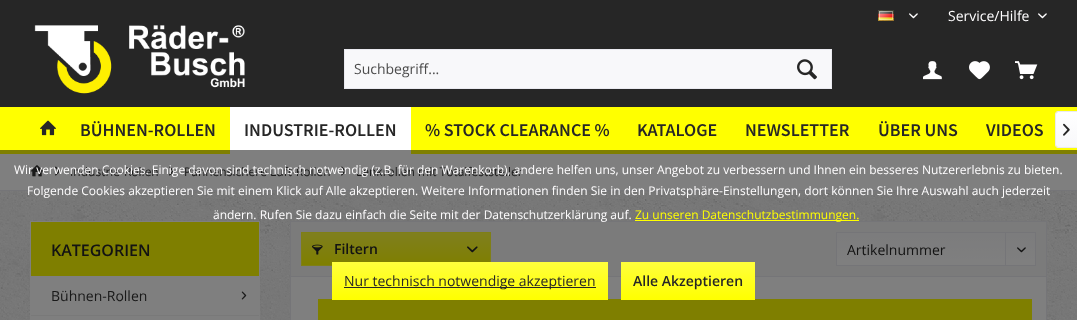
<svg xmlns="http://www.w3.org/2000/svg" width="1077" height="320">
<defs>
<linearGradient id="g1" gradientUnits="userSpaceOnUse" x1="1067" y1="112" x2="1067" y2="147"><stop offset="0" stop-color="#fff"/><stop offset="1" stop-color="#f8f8fa"/></linearGradient>
<linearGradient id="g2" gradientUnits="userSpaceOnUse" x1="396" y1="233" x2="396" y2="265"><stop offset="0" stop-color="#ffff3d"/><stop offset="1" stop-color="#ff0"/></linearGradient>
<linearGradient id="g3" gradientUnits="userSpaceOnUse" x1="936" y1="233" x2="936" y2="265"><stop offset="0" stop-color="#f8f8fa"/><stop offset="1" stop-color="#fff"/></linearGradient>
<linearGradient id="g4" gradientUnits="userSpaceOnUse" x1="470" y1="262" x2="470" y2="300"><stop offset="0" stop-color="#ffff3d"/><stop offset="1" stop-color="#ff0"/></linearGradient>
<linearGradient id="g5" gradientUnits="userSpaceOnUse" x1="688" y1="262" x2="688" y2="300"><stop offset="0" stop-color="#ffff3d"/><stop offset="1" stop-color="#ff0"/></linearGradient>
</defs>
<rect width="100%" height="100%" fill="#fff"/>
<image x="0" y="191" width="1077" height="129" href="media/1.png"/>
<rect width="1077" height="107" fill="#262626"/>
<image x="878" y="10" width="16" height="11" href="media/2.png"/>
<image x="909" y="13" width="9" height="6" href="media/3.png"/>
<text x="948" y="21" style="font-family:Open Sans;font-size:14px;fill:#fffeff">Service/Hilfe</text>
<image x="1038" y="13" width="9" height="6" href="media/3.png"/>
<image x="34" y="25" width="211" height="69" href="media/4.png"/>
<rect x="344.5" y="49.5" width="487" height="39" fill="#f8f8fa" stroke="#eaeaf0"/>
<text x="354" y="74" style="font-family:Open Sans;font-size:14px;fill:#4c4c4c">Suchbegriff...</text>
<image x="797" y="59" width="20" height="21" href="media/5.png"/>
<image x="923" y="61" width="19" height="19" href="media/6.png"/>
<image x="969" y="61" width="21" height="19" href="media/7.png"/>
<image x="1015" y="61" width="23" height="19" href="media/8.png"/>
<rect y="107" width="1077" height="47" fill="#ff0"/>
<image x="40" y="120" width="16" height="16" href="media/9.png"/>
<text x="80" y="136" style="font-family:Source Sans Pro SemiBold;font-size:18px;font-weight:600;fill:#262626">BÜHNEN-ROLLEN</text>
<rect x="230" y="107" width="181" height="47" fill="#fff"/>
<text x="244" y="136" style="font-family:Source Sans Pro SemiBold;font-size:18px;font-weight:600;fill:#262626">INDUSTRIE-ROLLEN</text>
<text x="425" y="136" style="font-family:Source Sans Pro SemiBold;font-size:18px;font-weight:600;fill:#262626">% STOCK CLEARANCE %</text>
<text x="637" y="136" style="font-family:Source Sans Pro SemiBold;font-size:18px;font-weight:600;fill:#262626">KATALOGE</text>
<text x="745" y="136" style="font-family:Source Sans Pro SemiBold;font-size:18px;font-weight:600;fill:#262626">NEWSLETTER</text>
<text x="878" y="136" style="font-family:Source Sans Pro SemiBold;font-size:18px;font-weight:600;fill:#262626">ÜBER UNS</text>
<text x="986" y="136" style="font-family:Source Sans Pro SemiBold;font-size:18px;font-weight:600;fill:#262626">VIDEOS</text>
<path d="M1058 112h19v35h-19c-1 0-2-1-2-2v-31c0-1 1-2 2-2z" fill="url(#g1)"/>
<path d="M1058 111h19v37h-19c-1.5 0-3-1.5-3-3v-31c0-1.5 1.5-3 3-3zm0 1h19v35h-19c-1 0-2-1-2-2v-31c0-1 1-2 2-2z" fill="#eaeaf0" fill-rule="evenodd"/>
<image x="1063" y="123" width="7" height="13" href="media/10.png"/>
<rect y="190" width="1077" height="1" fill="#eaeaf0"/>
<image x="30" y="165" width="14" height="12" href="media/11.png"/>
<image x="55" y="166" width="5" height="10" href="media/12.png"/>
<text x="70" y="176" style="font-family:Open Sans;font-size:12px;fill:#333">Industrie-Rollen</text>
<image x="169" y="166" width="5" height="10" href="media/12.png"/>
<text x="184" y="176" style="font-family:Open Sans;font-size:12px;fill:#333">Pannensichere Luft-Rollen</text>
<image x="341" y="166" width="5" height="10" href="media/12.png"/>
<text x="356" y="176" style="font-family:Open Sans;font-size:12px;fill:#333">Lenkrollen mit Totalfeststeller</text>
<rect x="31" y="222" width="228" height="54" fill="#ff0"/>
<rect x="30" y="221" width="230" height="1" fill="#fff"/>
<rect x="259" y="221" width="1" height="55" fill="#fff"/>
<rect x="30" y="221" width="1" height="55" fill="#fff"/>
<text x="51" y="256" style="font-family:Open Sans;font-size:16px;font-weight:600;fill:#262626">KATEGORIEN</text>
<rect x="30" y="276" width="230" height="44" fill="#fff"/>
<rect x="31" y="315" width="228" height="1" fill="#f2f2f2"/>
<text x="51" y="301" style="font-family:Open Sans;font-size:14px;fill:#333">Bühnen-Rollen</text>
<image x="241" y="291" width="6" height="9" href="media/13.png"/>
<rect x="290.5" y="221.5" width="756" height="55" fill="#f7f7f7" stroke="#eaeaf0"/>
<rect x="302" y="233" width="188" height="32" fill="url(#g2)"/>
<rect x="301.5" y="232.5" width="189" height="33" fill="none" stroke="#ffff2e"/>
<image x="312" y="244" width="11" height="11" href="media/14.png"/>
<text x="334" y="254" style="font-family:Open Sans;font-size:14px;font-weight:600;fill:#262626">Filtern</text>
<image x="467" y="246" width="11" height="7" href="media/15.png"/>
<rect x="837" y="233" width="198" height="32" fill="url(#g3)"/>
<rect x="836.5" y="232.5" width="199" height="33" fill="none" stroke="#eaeaf0"/>
<text x="847" y="255" style="font-family:Open Sans;font-size:14px;fill:#262626">Artikelnummer</text>
<rect x="1005" y="233" width="1" height="33" fill="#eaeaf0"/>
<image x="1017" y="247" width="9" height="6" href="media/16.png"/>
<rect x="290.5" y="276.5" width="756" height="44" fill="#fff" stroke="#eaeaf0"/>
<rect x="318" y="299" width="714" height="21" fill="#ff0"/>
<rect y="150" width="1077" height="170" fill="#00000080"/>
<text x="14" y="174" style="font-family:Open Sans;font-size:12px;fill:#fffeff">Wir verwenden Cookies. Einige davon sind technisch notwendig (z.B. für den Warenkorb), andere helfen uns, unser Angebot zu verbessern und Ihnen ein besseres Nutzererlebnis zu bieten.</text>
<text x="27" y="195" style="font-family:Open Sans;font-size:12px;fill:#fffeff">Folgende Cookies akzeptieren Sie mit einem Klick auf Alle akzeptieren. Weitere Informationen finden Sie in den Privatsphäre-Einstellungen, dort können Sie Ihre Auswahl auch jederzeit</text>
<text x="213" y="219" style="font-family:Open Sans;font-size:12px;fill:#fffeff">ändern. Rufen Sie dazu einfach die Seite mit der Datenschutzerklärung auf.</text>
<rect x="635" y="220" width="224" height="1" fill="#ff0"/>
<text x="635" y="219" style="font-family:Open Sans;font-size:12px;fill:#ff0">Zu unseren Datenschutzbestimmungen.</text>
<rect x="332" y="262" width="276" height="38" fill="url(#g4)"/>
<rect x="344" y="287" width="252" height="1" fill="#262626"/>
<text x="344" y="286" style="font-family:Open Sans;font-size:14px;fill:#262626">Nur technisch notwendige akzeptieren</text>
<rect x="621" y="262" width="134" height="38" fill="url(#g5)"/>
<text x="633" y="286" style="font-family:Open Sans;font-size:14px;font-weight:600;fill:#262626">Alle Akzeptieren</text>
</svg>
